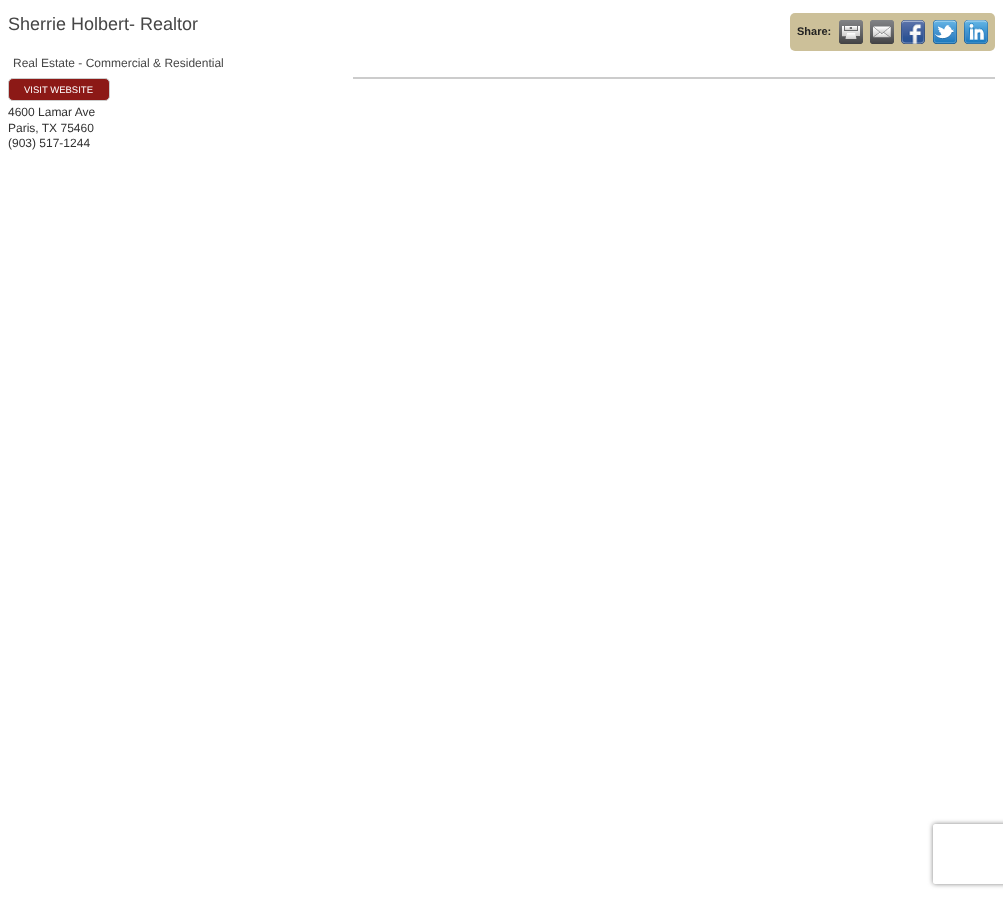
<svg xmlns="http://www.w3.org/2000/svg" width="1003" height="898">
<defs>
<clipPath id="clip1"><path d="M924 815h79v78h-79zm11 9h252c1 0 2 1 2 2v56c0 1-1 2-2 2h-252c-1 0-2-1-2-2v-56c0-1 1-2 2-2z" clip-rule="evenodd"/></clipPath>
</defs>
<rect width="100%" height="100%" fill="#fff"/>
<text x="8" y="30" style="font-family:Liberation Sans;font-size:18px;fill:#464646">Sherrie Holbert- Realtor</text>
<rect x="790" y="13" width="205" height="38" rx="5" fill="#ccc099"/>
<text x="797" y="35" style="font-family:Liberation Sans;font-size:11px;font-weight:bold;fill:#222">Share:</text>
<image x="839" y="20" width="24" height="24" href="media/1.png"/>
<image x="870" y="20" width="24" height="24" href="media/2.png"/>
<image x="901" y="20" width="24" height="24" href="media/3.png"/>
<image x="933" y="20" width="24" height="24" href="media/4.png"/>
<image x="964" y="20" width="24" height="24" href="media/5.png"/>
<text x="13" y="67" style="font-family:Liberation Sans;font-size:12px;fill:#464646">Real Estate - Commercial &amp; Residential</text>
<rect x="353" y="77" width="642" height="2" fill="#ccc"/>
<rect x="8.5" y="78.5" width="101" height="22" rx="4.5" fill="#8c1916" stroke="#ccc"/>
<text x="24" y="93" style="font-family:Liberation Sans;font-size:9.5px;fill:#fff">VISIT WEBSITE</text>
<text x="8" y="116" style="font-family:Liberation Sans;font-size:12px;fill:#313131">4600 Lamar Ave</text>
<text x="8" y="132" style="font-family:Liberation Sans;font-size:12px;fill:#313131">Paris, TX 75460</text>
<text x="8" y="147" style="font-family:Liberation Sans;font-size:12px;fill:#313131">(903) 517-1244</text>
<g clip-path="url(#clip1)">
<rect x="933" y="824" width="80" height="60" rx="2" fill="#808080" filter="blur(2.5px)"/>
</g>
</svg>
